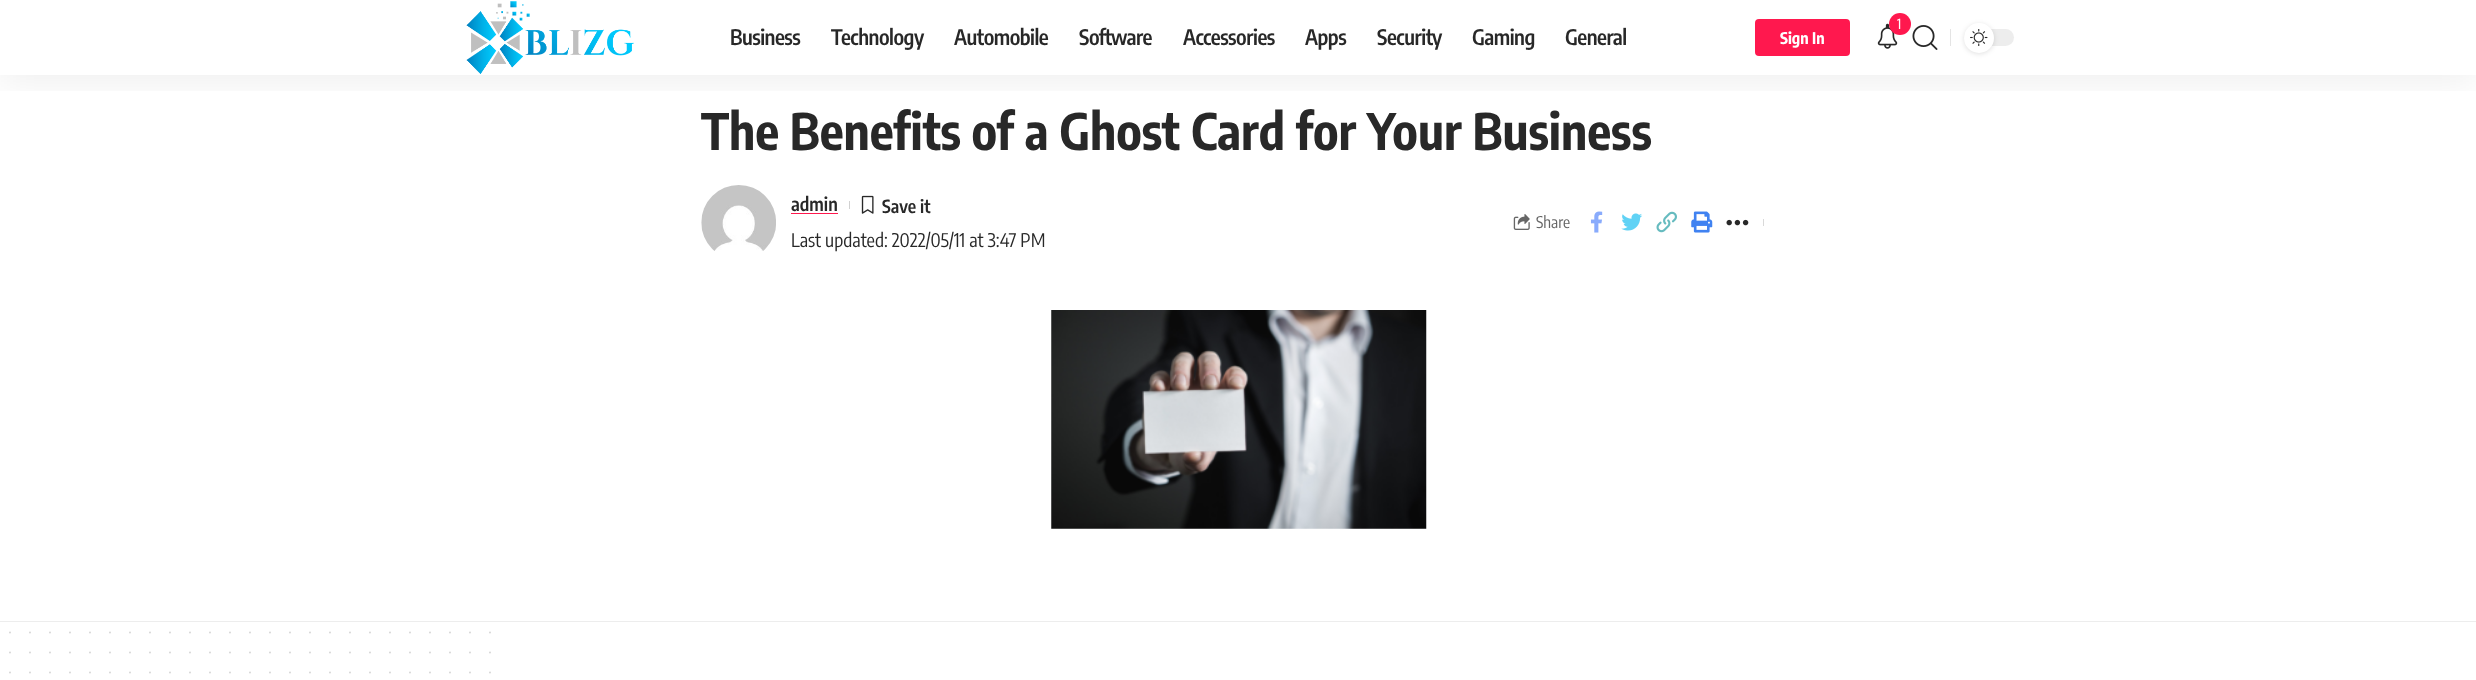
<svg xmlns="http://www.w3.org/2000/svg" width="2476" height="680">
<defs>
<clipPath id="clip1"><rect x="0" y="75" width="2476" height="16"/></clipPath>
</defs>
<rect width="100%" height="100%" fill="#fff"/>
<g clip-path="url(#clip1)">
<rect y="5" width="2476" height="75" fill="#00000012" filter="blur(19px)"/>
</g>
<image x="466" y="1" width="168" height="73" href="media/1.png"/>
<text x="730" y="45" style="font-family:Encode Sans Condensed;font-size:21.25px;font-weight:600;letter-spacing:-0.5px;fill:#282828">Business</text>
<text x="831" y="45" style="font-family:Encode Sans Condensed;font-size:21.25px;font-weight:600;letter-spacing:-0.5px;fill:#282828">Technology</text>
<text x="954" y="45" style="font-family:Encode Sans Condensed;font-size:21.25px;font-weight:600;letter-spacing:-0.5px;fill:#282828">Automobile</text>
<text x="1079" y="45" style="font-family:Encode Sans Condensed;font-size:21.25px;font-weight:600;letter-spacing:-0.5px;fill:#282828">Software</text>
<text x="1183" y="45" style="font-family:Encode Sans Condensed;font-size:21.25px;font-weight:600;letter-spacing:-0.5px;fill:#282828">Accessories</text>
<text x="1305" y="45" style="font-family:Encode Sans Condensed;font-size:21.25px;font-weight:600;letter-spacing:-0.5px;fill:#282828">Apps</text>
<text x="1377" y="45" style="font-family:Encode Sans Condensed;font-size:21.25px;font-weight:600;letter-spacing:-0.5px;fill:#282828">Security</text>
<text x="1472" y="45" style="font-family:Encode Sans Condensed;font-size:21.25px;font-weight:600;letter-spacing:-0.5px;fill:#282828">Gaming</text>
<text x="1565" y="45" style="font-family:Encode Sans Condensed;font-size:21.25px;font-weight:600;letter-spacing:-0.5px;fill:#282828">General</text>
<image x="1877" y="23" width="21" height="26" href="media/2.png"/>
<circle cx="1900" cy="24" r="11" fill="#ff184e"/>
<text x="1897" y="29" style="font-family:Oxygen;font-size:14px;fill:#fff">1</text>
<rect x="1950" y="29" width="1" height="17" fill="#e4e4e4"/>
<rect x="1964" y="29" width="50" height="17" rx="8.5" fill="#ededed"/>
<rect x="1964" y="24" width="30" height="30" rx="15" fill="#0000001f" filter="blur(2.5px)"/>
<circle cx="1979" cy="38" r="15" fill="#fff"/>
<image x="1970" y="29" width="18" height="17" href="media/3.png"/>
<rect x="1755" y="19" width="95" height="37" rx="4" fill="#ff184e"/>
<text x="1780" y="44" style="font-family:Encode Sans Condensed;font-size:16px;font-weight:bold;fill:#fff">Sign In</text>
<image x="1912" y="25" width="26" height="25" href="media/4.png"/>
<text x="701" y="150" style="font-family:Encode Sans Condensed;font-size:50px;font-weight:bold;fill:#282828">The Benefits of a Ghost Card for Your Business</text>
<image x="701" y="185" width="75" height="66" href="media/5.png"/>
<text x="791" y="211" style="font-family:Encode Sans Condensed;font-size:18.75px;font-weight:600;fill:#282828">admin</text>
<rect x="791" y="213" width="47" height="1" fill="#ff184e"/>
<rect x="849" y="201" width="1" height="8" fill="#d1d1d1"/>
<image x="861" y="195" width="13" height="19" href="media/6.png"/>
<text x="882" y="213" style="font-family:Encode Sans Condensed;font-size:18px;font-weight:600;fill:#282828">Save it</text>
<text x="791" y="247" style="font-family:Encode Sans Condensed;font-size:18.75px;fill:#282828">Last updated: 2022/05/11 at 3:47 PM</text>
<image x="1513" y="214" width="17" height="16" href="media/7.png"/>
<text x="1536" y="228" style="font-family:Encode Sans Condensed;font-size:16px;fill:#666">Share</text>
<image x="1590" y="211" width="13" height="22" href="media/8.png"/>
<image x="1621" y="213" width="22" height="18" href="media/9.png"/>
<image x="1656" y="211" width="21" height="22" href="media/10.png"/>
<image x="1691" y="211" width="22" height="22" href="media/11.png"/>
<image x="1726" y="219" width="23" height="7" href="media/12.png"/>
<rect x="1763" y="219" width="1" height="7" fill="#d9d9d9"/>
<image x="1051" y="310" width="376" height="219" href="media/13.png"/>
<rect y="621" width="2476" height="1" fill="#ededed"/>
<path d="M10 632.5h480.2" fill="none" stroke="#d4d4d4" stroke-width="1.9" stroke-linecap="round" stroke-dasharray="0 20"/>
<path d="M10 652.5h480.2" fill="none" stroke="#d4d4d4" stroke-width="1.9" stroke-linecap="round" stroke-dasharray="0 20"/>
<path d="M10 672.5h480.2" fill="none" stroke="#d4d4d4" stroke-width="1.9" stroke-linecap="round" stroke-dasharray="0 20"/>
</svg>
